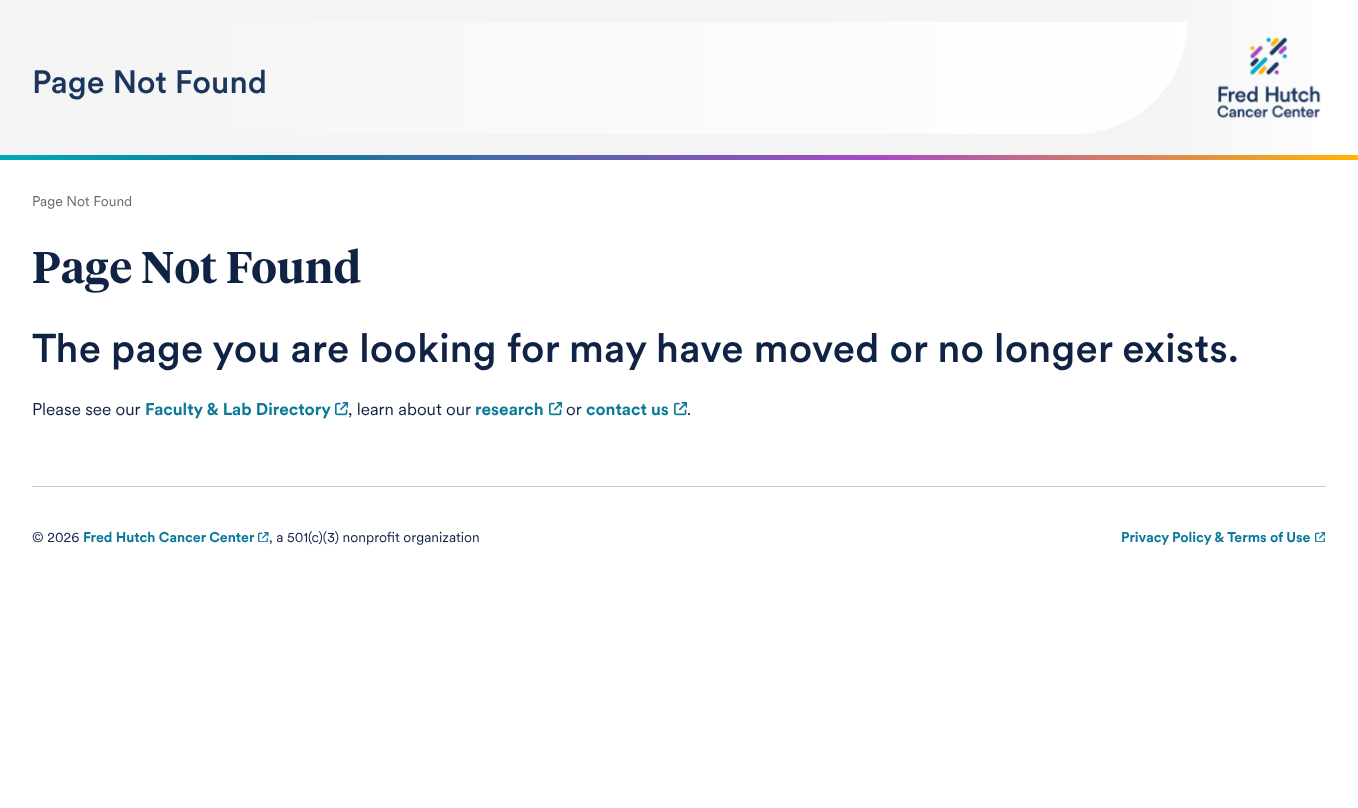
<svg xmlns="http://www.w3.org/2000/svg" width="1358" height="808">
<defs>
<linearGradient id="g1" gradientUnits="userSpaceOnUse" x1="0" y1="78" x2="1358" y2="77"><stop offset="0.85" stop-color="#f4f4f4"/><stop offset="1" stop-color="#fff"/></linearGradient>
<linearGradient id="g2" gradientUnits="userSpaceOnUse" x1="32" y1="78" x2="1187" y2="78"><stop offset="0" stop-color="#f4f4f4"/><stop offset="1" stop-color="#fff"/></linearGradient>
</defs>
<rect width="100%" height="100%" fill="#fff"/>
<rect width="1312" height="155" fill="url(#g1)"/>
<image x="0" y="155" width="1358" height="5" href="media/1.png"/>
<path d="M32 22h1155c0 62-50 112-112 112h-1043z" fill="url(#g2)"/>
<text x="32" y="93" style="font-family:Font;font-size:32px;font-weight:500;fill:#1b365d">Page Not Found</text>
<image x="1217" y="37" width="104" height="81" href="media/2.png"/>
<text x="32" y="206" style="font-family:Font;font-size:14px;fill:#6b6b6b">Page Not Found</text>
<text x="32" y="283" style="font-family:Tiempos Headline;font-size:44px;font-weight:600;letter-spacing:0.5px;fill:#112345">Page Not Found</text>
<text x="32" y="362" style="font-family:Font;font-size:40px;font-weight:500;letter-spacing:0.2px;fill:#112345">The page you are looking for may have moved or no longer exists.</text>
<text x="32" y="415" style="font-family:Font;font-size:17px;fill:#112345">Please see our</text>
<text x="145" y="415" style="font-family:Font;font-size:17px;font-weight:bold;fill:#0a799a">Faculty &amp; Lab Directory</text>
<image x="335" y="402" width="13" height="14" href="media/3.png"/>
<text x="348" y="415" style="font-family:Font;font-size:17px;fill:#112345">, learn about our</text>
<text x="475" y="415" style="font-family:Font;font-size:17px;font-weight:bold;fill:#0a799a">research</text>
<image x="549" y="402" width="13" height="14" href="media/3.png"/>
<text x="566" y="415" style="font-family:Font;font-size:17px;fill:#112345">or</text>
<text x="586" y="415" style="font-family:Font;font-size:17px;font-weight:bold;fill:#0a799a">contact us</text>
<image x="674" y="402" width="13" height="14" href="media/3.png"/>
<text x="687" y="415" style="font-family:Font;font-size:17px;fill:#112345">.</text>
<rect x="32" y="486" width="1294" height="1" fill="#cacaca"/>
<text x="32" y="542" style="font-family:Font;font-size:14px;fill:#112345">© 2026</text>
<text x="83" y="542" style="font-family:Font;font-size:14px;font-weight:bold;fill:#0a799a">Fred Hutch Cancer Center</text>
<image x="258" y="532" width="11" height="10" href="media/4.png"/>
<text x="269" y="542" style="font-family:Font;font-size:14px;fill:#112345">, a 501(c)(3) nonprofit organization</text>
<text x="1121" y="542" style="font-family:Font;font-size:14px;font-weight:bold;fill:#0a799a">Privacy Policy &amp; Terms of Use</text>
<image x="1315" y="532" width="10" height="10" href="media/5.png"/>
</svg>
